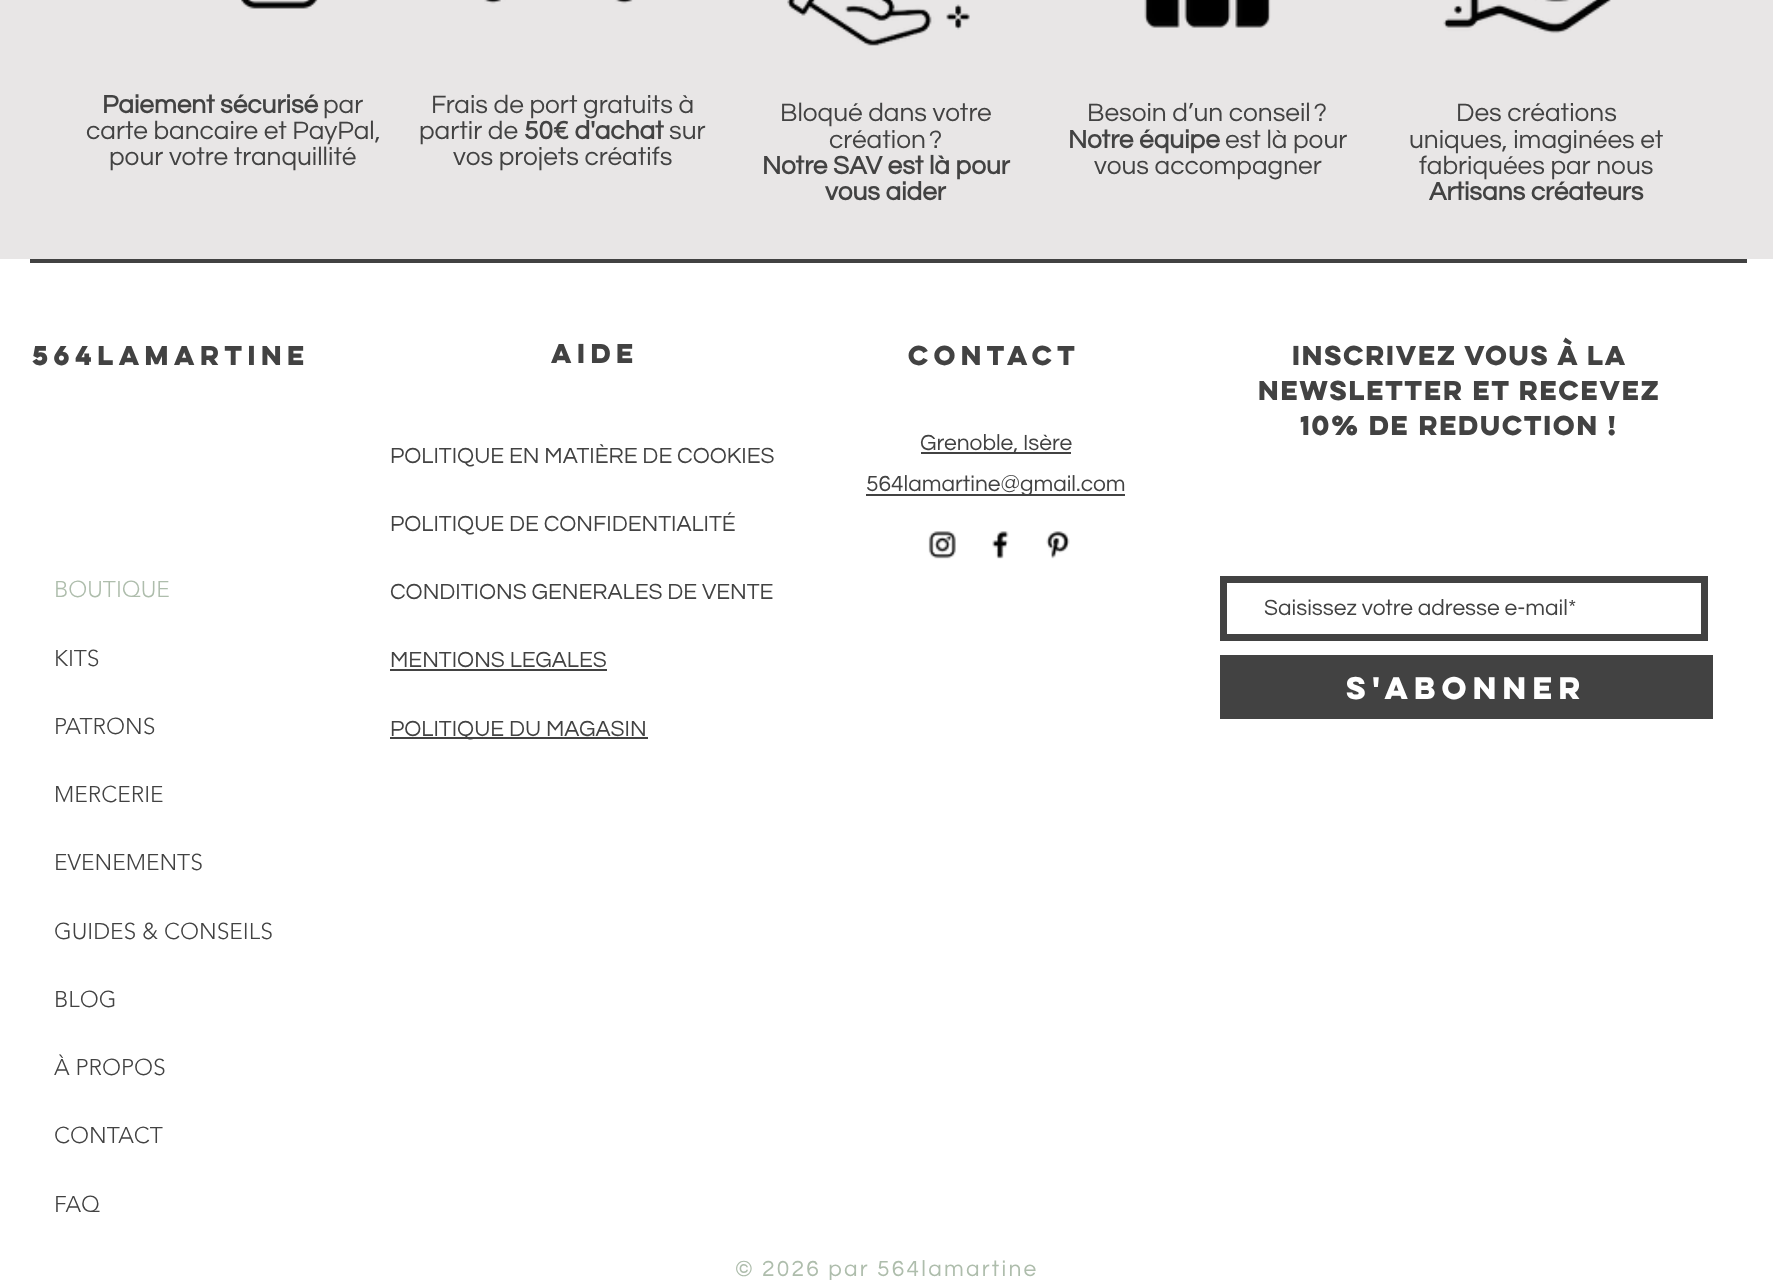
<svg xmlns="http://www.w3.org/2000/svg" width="1773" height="1280">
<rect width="100%" height="100%" fill="#fff"/>
<rect width="1773" height="259" fill="#e8e6e6"/>
<image x="241" y="0" width="77" height="9" href="media/1.png"/>
<image x="484" y="0" width="149" height="4" href="media/2.png"/>
<image x="787" y="0" width="183" height="46" href="media/3.png"/>
<image x="1144" y="0" width="127" height="28" href="media/4.png"/>
<image x="1443" y="0" width="168" height="34" href="media/5.png"/>
<text x="102" y="113" style="font-family:Questrial;font-size:26.25px;font-weight:bold;fill:#424242">Paiement sécurisé</text>
<text x="323" y="113" style="font-family:Questrial;font-size:26.25px;fill:#424242">par</text>
<text x="86" y="139" style="font-family:Questrial;font-size:26.25px;fill:#424242">carte bancaire et PayPal,</text>
<text x="109" y="165" style="font-family:Questrial;font-size:26.25px;fill:#424242">pour votre tranquillité</text>
<text x="431" y="113" style="font-family:Questrial;font-size:26.25px;fill:#424242">Frais de port gratuits à</text>
<text x="419" y="139" style="font-family:Questrial;font-size:26.25px;fill:#424242">partir de</text>
<text x="524" y="139" style="font-family:Questrial;font-size:26.25px;font-weight:bold;fill:#424242">50€ d'achat</text>
<text x="669" y="139" style="font-family:Questrial;font-size:26.25px;fill:#424242">sur</text>
<text x="453" y="165" style="font-family:Questrial;font-size:26.25px;fill:#424242">vos projets créatifs</text>
<text x="780" y="121" style="font-family:Questrial;font-size:26.25px;fill:#424242">Bloqué dans votre</text>
<text x="829" y="148" style="font-family:Questrial;font-size:26.25px;fill:#424242">création ?</text>
<text x="762" y="174" style="font-family:Questrial;font-size:26.25px;font-weight:bold;fill:#424242">Notre SAV est là pour</text>
<text x="825" y="200" style="font-family:Questrial;font-size:26.25px;font-weight:bold;fill:#424242">vous aider</text>
<text x="1087" y="121" style="font-family:Questrial;font-size:26.25px;fill:#424242">Besoin d’un conseil ?</text>
<text x="1068" y="148" style="font-family:Questrial;font-size:26.25px;font-weight:bold;fill:#424242">Notre équipe</text>
<text x="1225" y="148" style="font-family:Questrial;font-size:26.25px;fill:#424242">est là pour</text>
<text x="1094" y="174" style="font-family:Questrial;font-size:26.25px;fill:#424242">vous accompagner</text>
<text x="1456" y="121" style="font-family:Questrial;font-size:26.25px;fill:#424242">Des créations</text>
<text x="1409" y="148" style="font-family:Questrial;font-size:26.25px;fill:#424242">uniques, imaginées et</text>
<text x="1419" y="174" style="font-family:Questrial;font-size:26.25px;fill:#424242">fabriquées par nous</text>
<text x="1429" y="200" style="font-family:Questrial;font-size:26.25px;font-weight:bold;fill:#424242">Artisans créateurs</text>
<rect x="30" y="259" width="1717" height="4" fill="#424242"/>
<text x="32" y="365" style="font-family:'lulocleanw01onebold';font-size:24.5px;font-weight:bold;fill:#424242">564Lamartine</text>
<text x="551" y="363" style="font-family:'lulocleanw01onebold';font-size:24.5px;font-weight:bold;fill:#424242">AIDE</text>
<text x="390" y="463" style="font-family:Questrial;font-size:22.75px;fill:#424242">POLITIQUE EN MATIÈRE DE COOKIES</text>
<text x="390" y="531" style="font-family:Questrial;font-size:22.75px;fill:#424242">POLITIQUE DE CONFIDENTIALITÉ</text>
<text x="390" y="599" style="font-family:Questrial;font-size:22.75px;fill:#424242">CONDITIONS GENERALES DE VENTE</text>
<text x="390" y="667" style="font-family:Questrial;font-size:22.75px;fill:#424242">MENTIONS LEGALES</text>
<rect x="390" y="669" width="217" height="2" fill="#424242"/>
<rect x="390" y="737" width="258" height="2" fill="#424242"/>
<text x="390" y="736" style="font-family:Questrial;font-size:22.75px;fill:#424242">POLITIQUE DU MAGASIN</text>
<text x="908" y="365" style="font-family:'lulocleanw01onebold';font-size:24.5px;font-weight:bold;fill:#424242">CONTACT</text>
<rect x="921" y="452" width="150" height="2" fill="#424242"/>
<text x="920" y="450" style="font-family:Questrial;font-size:22.75px;fill:#424242">Grenoble, Isère</text>
<rect x="866" y="494" width="259" height="2" fill="#424242"/>
<text x="866" y="491" style="font-family:Questrial;font-size:22.75px;fill:#424242">564lamartine@gmail.com</text>
<image x="928" y="531" width="28" height="28" href="media/6.png"/>
<image x="992" y="531" width="17" height="28" href="media/7.png"/>
<image x="1046" y="531" width="24" height="28" href="media/8.png"/>
<text x="1292" y="365" style="font-family:'lulocleanw01onebold';font-size:24.5px;font-weight:bold;letter-spacing:-3.7px;fill:#424242">inscrivez vous à la</text>
<text x="1258" y="400" style="font-family:'lulocleanw01onebold';font-size:24.5px;font-weight:bold;letter-spacing:-3.7px;fill:#424242">newsletter et recevez</text>
<text x="1300" y="435" style="font-family:'lulocleanw01onebold';font-size:24.5px;font-weight:bold;letter-spacing:-3.7px;fill:#424242">10% de reduction !</text>
<text x="54" y="597" style="font-family:'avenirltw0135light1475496';font-size:22.75px;font-weight:300;fill:#aebdac">BOUTIQUE</text>
<text x="54" y="666" style="font-family:'avenirltw0135light1475496';font-size:22.75px;font-weight:300;fill:#424242">KITS</text>
<text x="54" y="734" style="font-family:'avenirltw0135light1475496';font-size:22.75px;font-weight:300;fill:#424242">PATRONS</text>
<text x="54" y="802" style="font-family:'avenirltw0135light1475496';font-size:22.75px;font-weight:300;fill:#424242">MERCERIE</text>
<text x="54" y="870" style="font-family:'avenirltw0135light1475496';font-size:22.75px;font-weight:300;fill:#424242">EVENEMENTS</text>
<text x="54" y="939" style="font-family:'avenirltw0135light1475496';font-size:22.75px;font-weight:300;fill:#424242">GUIDES &amp; CONSEILS</text>
<text x="54" y="1007" style="font-family:'avenirltw0135light1475496';font-size:22.75px;font-weight:300;fill:#424242">BLOG</text>
<text x="54" y="1075" style="font-family:'avenirltw0135light1475496';font-size:22.75px;font-weight:300;fill:#424242">À PROPOS</text>
<text x="54" y="1143" style="font-family:'avenirltw0135light1475496';font-size:22.75px;font-weight:300;fill:#424242">CONTACT</text>
<text x="54" y="1212" style="font-family:'avenirltw0135light1475496';font-size:22.75px;font-weight:300;fill:#424242">FAQ</text>
<rect x="1223.5" y="579.5" width="481" height="58" fill="none" stroke="#424242" stroke-width="7"/>
<text x="1264" y="615" style="font-family:Questrial;font-size:22.75px;fill:#424242">Saisissez votre adresse e-mail*</text>
<rect x="1220" y="655" width="493" height="64" fill="#424242"/>
<text x="1346" y="699" style="font-family:'lulocleanw01onebold';font-size:28px;font-weight:bold;fill:#fff">S'abonner</text>
<text x="735" y="1276" style="font-family:Questrial;font-size:22.75px;letter-spacing:2.25px;fill:#aebdac">© 2026 par 564lamartine</text>
</svg>
